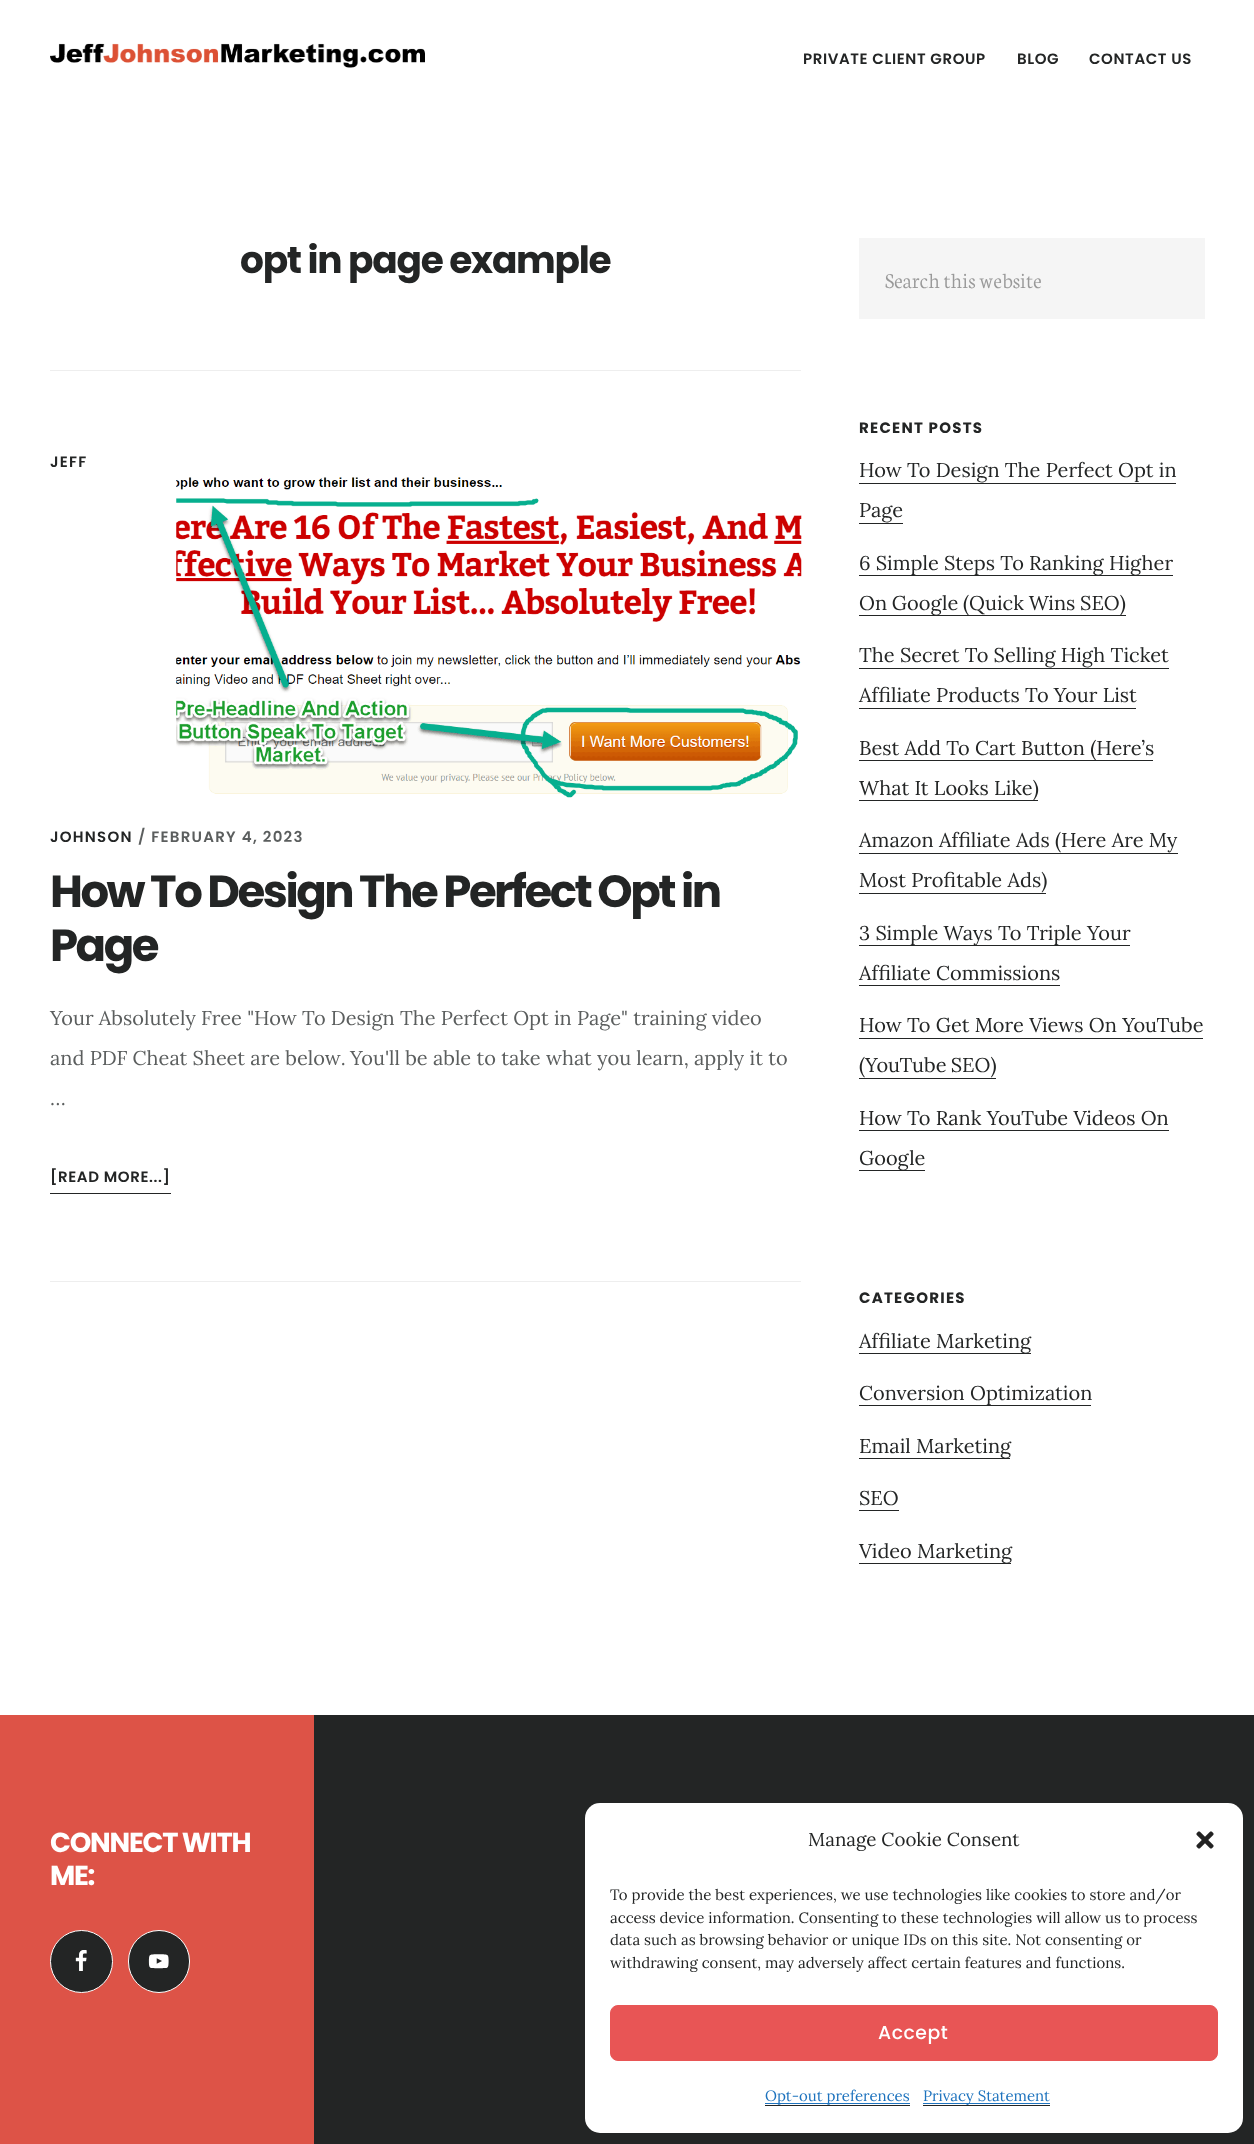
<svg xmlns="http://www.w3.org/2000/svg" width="1254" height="2144">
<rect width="100%" height="100%" fill="#fff"/>
<image x="50" y="43" width="375" height="25" href="media/1.png"/>
<text x="803" y="64" style="font-family:Poppins;font-size:15px;font-weight:600;letter-spacing:0.6px;fill:#232525">PRIVATE CLIENT GROUP</text>
<text x="1017" y="64" style="font-family:Poppins;font-size:15px;font-weight:600;letter-spacing:0.6px;fill:#232525">BLOG</text>
<text x="1089" y="64" style="font-family:Poppins;font-size:15px;font-weight:600;letter-spacing:0.6px;fill:#232525">CONTACT US</text>
<rect x="50" y="370" width="751" height="1" fill="#eee"/>
<text x="240" y="273" style="font-family:Poppins;font-size:37.5px;font-weight:bold;letter-spacing:-1.25px;fill:#232525">opt in page example</text>
<rect x="50" y="1281" width="751" height="1" fill="#eee"/>
<text x="50" y="467" style="font-family:Poppins;font-size:15px;font-weight:600;letter-spacing:1.25px;fill:#232525">JEFF</text>
<text x="50" y="842" style="font-family:Poppins;font-size:15px;font-weight:600;letter-spacing:1.25px;fill:#232525">JOHNSON</text>
<text x="138" y="842" style="font-family:Poppins;font-size:15px;font-weight:600;letter-spacing:1.25px;fill:#5b5e5e">/ FEBRUARY 4, 2023</text>
<text x="50" y="907" style="font-family:Poppins;font-size:45px;font-weight:bold;letter-spacing:-2.5px;fill:#232525">How To Design The Perfect Opt in</text>
<text x="50" y="961" style="font-family:Poppins;font-size:45px;font-weight:bold;letter-spacing:-2.5px;fill:#232525">Page</text>
<image x="176" y="477" width="626" height="321" href="media/2.png"/>
<text x="50" y="1025" style="font-family:Lora;font-size:20px;fill:#5b5e5e">Your Absolutely Free "How To Design The Perfect Opt in Page" training video</text>
<text x="50" y="1065" style="font-family:Lora;font-size:20px;fill:#5b5e5e">and PDF Cheat Sheet are below.</text>
<text x="350" y="1065" style="font-family:Lora;font-size:20px;fill:#5b5e5e">You'll be able to take what you learn, apply it to</text>
<text x="50" y="1105" style="font-family:Lora;font-size:20px;fill:#5b5e5e">…</text>
<rect x="50" y="1193" width="121" height="1" fill="#232525"/>
<text x="50" y="1182" style="font-family:Poppins;font-size:15px;font-weight:600;letter-spacing:0.6px;fill:#232525">[READ MORE...]</text>
<rect x="859" y="238" width="346" height="81" fill="#f5f5f5"/>
<text x="885" y="288" style="font-family:Neuton;font-size:22.5px;font-weight:300;fill:#999">Search this website</text>
<text x="859" y="433" style="font-family:Poppins;font-size:15px;font-weight:bold;letter-spacing:1.25px;fill:#232525">RECENT POSTS</text>
<text x="859" y="477" style="font-family:Lora;font-size:20px;fill:#232525">How To Design The Perfect Opt in</text>
<rect x="859" y="483" width="317" height="1" fill="#232525"/>
<text x="859" y="517" style="font-family:Lora;font-size:20px;fill:#232525">Page</text>
<rect x="859" y="523" width="44" height="1" fill="#232525"/>
<rect x="859" y="575" width="314" height="1" fill="#232525"/>
<text x="859" y="570" style="font-family:Lora;font-size:20px;fill:#232525">6 Simple Steps To Ranking Higher</text>
<rect x="859" y="615" width="267" height="1" fill="#232525"/>
<text x="859" y="610" word-spacing="-0.5" style="font-family:Lora;font-size:20px;fill:#232525">On Google (Quick Wins SEO)</text>
<text x="859" y="662" style="font-family:Lora;font-size:20px;fill:#232525">The Secret To Selling High Ticket</text>
<rect x="859" y="668" width="310" height="1" fill="#232525"/>
<text x="859" y="702" style="font-family:Lora;font-size:20px;fill:#232525">Affiliate Products To Your List</text>
<rect x="859" y="708" width="277" height="1" fill="#232525"/>
<rect x="859" y="760" width="294" height="1" fill="#232525"/>
<text x="859" y="755" style="font-family:Lora;font-size:20px;fill:#232525">Best Add To Cart Button (Here’s</text>
<rect x="859" y="800" width="179" height="1" fill="#232525"/>
<text x="859" y="795" style="font-family:Lora;font-size:20px;fill:#232525">What It Looks Like)</text>
<text x="859" y="847" style="font-family:Lora;font-size:20px;fill:#232525">Amazon Affiliate Ads (Here Are My</text>
<rect x="859" y="853" width="319" height="1" fill="#232525"/>
<text x="859" y="887" style="font-family:Lora;font-size:20px;fill:#232525">Most Profitable Ads)</text>
<rect x="859" y="893" width="187" height="1" fill="#232525"/>
<rect x="859" y="945" width="271" height="1" fill="#232525"/>
<text x="859" y="940" style="font-family:Lora;font-size:20px;fill:#232525">3 Simple Ways To Triple Your</text>
<text x="859" y="980" style="font-family:Lora;font-size:20px;fill:#232525">Affiliate Commissions</text>
<rect x="859" y="985" width="201" height="1" fill="#232525"/>
<text x="859" y="1032" style="font-family:Lora;font-size:20px;fill:#232525">How To Get More Views On YouTube</text>
<rect x="859" y="1038" width="344" height="1" fill="#232525"/>
<text x="859" y="1072" word-spacing="-1" style="font-family:Lora;font-size:20px;fill:#232525">(YouTube SEO)</text>
<rect x="859" y="1078" width="137" height="1" fill="#232525"/>
<text x="859" y="1125" style="font-family:Lora;font-size:20px;fill:#232525">How To Rank YouTube Videos On</text>
<rect x="859" y="1130" width="310" height="1" fill="#232525"/>
<rect x="859" y="1170" width="66" height="1" fill="#232525"/>
<text x="859" y="1165" style="font-family:Lora;font-size:20px;fill:#232525">Google</text>
<text x="859" y="1303" style="font-family:Poppins;font-size:15px;font-weight:bold;letter-spacing:1.25px;fill:#232525">CATEGORIES</text>
<rect x="859" y="1353" width="172" height="1" fill="#232525"/>
<text x="859" y="1348" style="font-family:Lora;font-size:20px;fill:#232525">Affiliate Marketing</text>
<rect x="859" y="1405" width="232" height="1" fill="#232525"/>
<text x="859" y="1400" style="font-family:Lora;font-size:20px;fill:#232525">Conversion Optimization</text>
<rect x="859" y="1458" width="151" height="1" fill="#232525"/>
<text x="859" y="1453" style="font-family:Lora;font-size:20px;fill:#232525">Email Marketing</text>
<text x="859" y="1505" style="font-family:Lora;font-size:20px;fill:#232525">SEO</text>
<rect x="859" y="1510" width="40" height="1" fill="#232525"/>
<rect x="859" y="1563" width="152" height="1" fill="#232525"/>
<text x="859" y="1558" style="font-family:Lora;font-size:20px;fill:#232525">Video Marketing</text>
<rect x="314" y="1715" width="940" height="429" fill="#232525"/>
<rect y="1715" width="314" height="429" fill="#dd5347"/>
<text x="50" y="1852" style="font-family:Poppins;font-size:27.5px;font-weight:bold;letter-spacing:-1.25px;fill:#fff">CONNECT WITH</text>
<text x="50" y="1885" style="font-family:Poppins;font-size:27.5px;font-weight:bold;letter-spacing:-1.25px;fill:#fff">ME:</text>
<circle cx="81.5" cy="1961.5" r="31" fill="#232525" stroke="#fff"/>
<image x="75" y="1950" width="12" height="21" href="media/3.png"/>
<rect x="128.5" y="1930.5" width="61" height="62" rx="30.5" fill="#232525" stroke="#fff"/>
<image x="148" y="1954" width="21" height="15" href="media/4.png"/>
<rect x="585" y="1803" width="658" height="330" rx="15" fill="#fff"/>
<text x="808" y="1846" style="font-family:Lora;font-size:18.75px;fill:#232525">Manage Cookie Consent</text>
<image x="1196" y="1831" width="18" height="18" href="media/5.png"/>
<text x="610" y="1900" style="font-family:Lora;font-size:15px;fill:#232525">To provide the best experiences, we use technologies like cookies to store and/or</text>
<text x="610" y="1923" style="font-family:Lora;font-size:15px;fill:#232525">access device information. Consenting to these technologies will allow us to process</text>
<text x="610" y="1945" style="font-family:Lora;font-size:15px;fill:#232525">data such as browsing behavior or unique IDs on this site. Not consenting or</text>
<text x="610" y="1968" style="font-family:Lora;font-size:15px;fill:#232525">withdrawing consent, may adversely affect certain features and functions.</text>
<rect x="610.5" y="2005.5" width="607" height="55" rx="7.5" fill="#e85555" stroke="#e85555"/>
<text x="878" y="2039" style="font-family:Poppins;font-size:18.75px;font-weight:500;letter-spacing:0.6px;fill:#fff">Accept</text>
<rect x="765" y="2103" width="145" height="1" fill="#1e73be"/>
<text x="765" y="2101" style="font-family:Lora;font-size:15px;fill:#1e73be">Opt-out preferences</text>
<rect x="765" y="2105" width="145" height="1" fill="#232525"/>
<rect x="923" y="2105" width="127" height="1" fill="#232525"/>
<rect x="923" y="2103" width="127" height="1" fill="#1e73be"/>
<text x="923" y="2101" style="font-family:Lora;font-size:15px;fill:#1e73be">Privacy Statement</text>
</svg>
